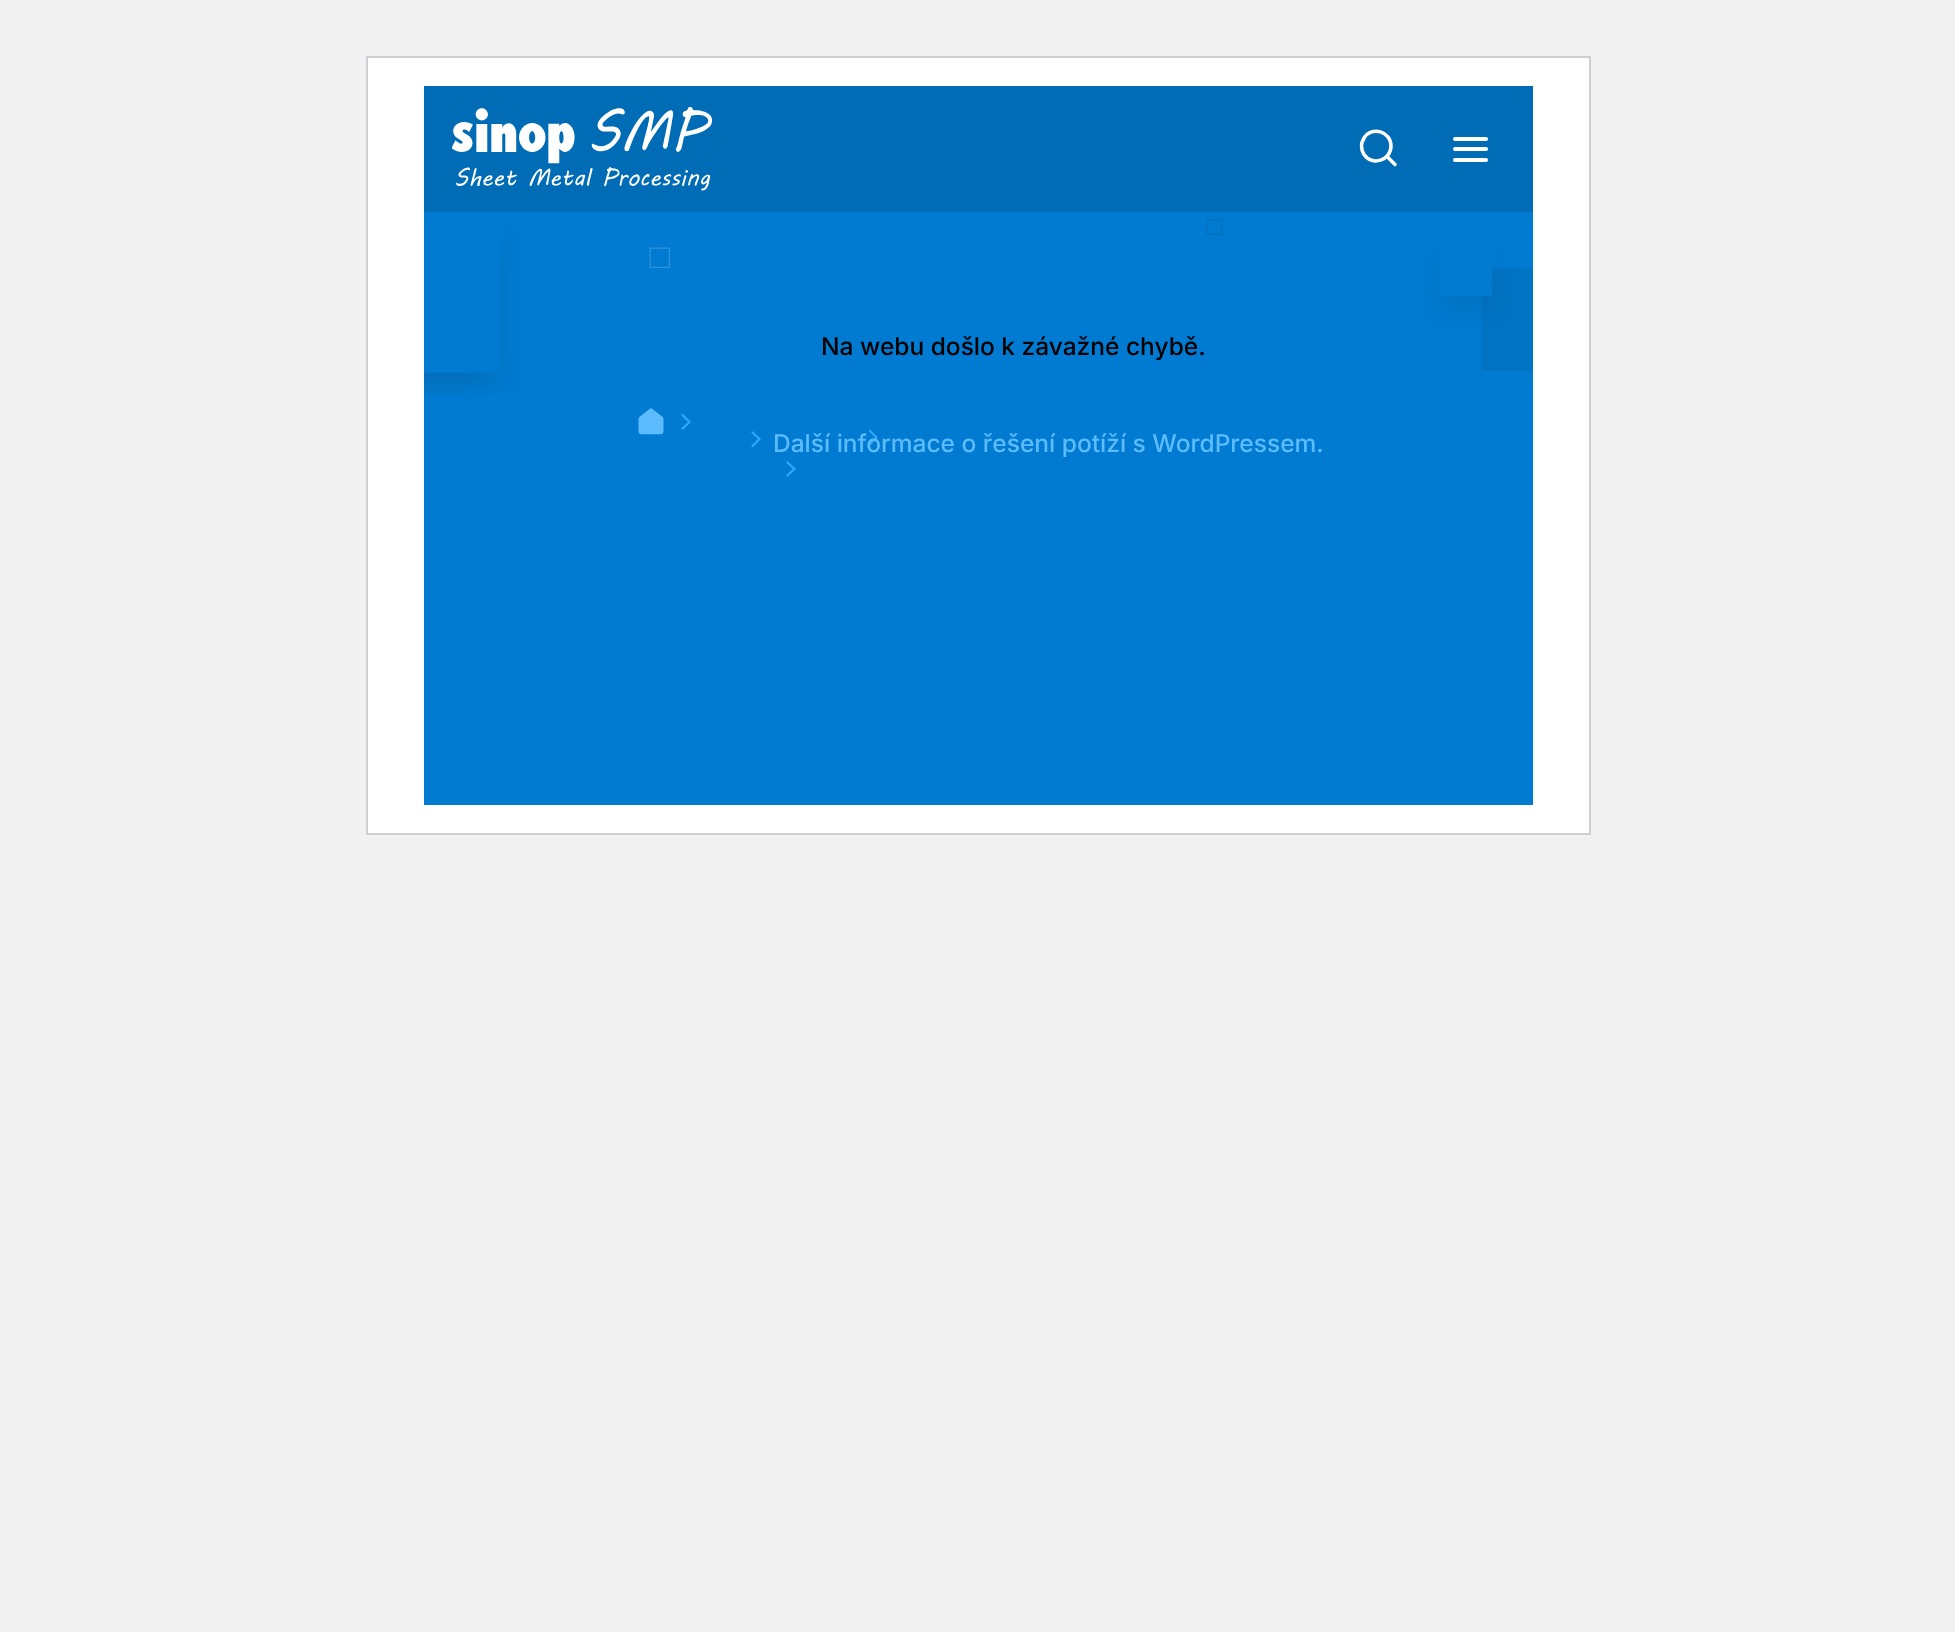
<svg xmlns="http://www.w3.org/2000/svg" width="1955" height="1632">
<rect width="100%" height="100%" fill="#f1f1f1"/>
<rect x="367" y="57" width="1223" height="777" fill="#fff" stroke="#ccd0d4" stroke-width="2"/>
<rect x="424" y="86" width="1109" height="126" fill="#006cb6"/>
<image x="452" y="107" width="260" height="84" href="media/1.png"/>
<path d="M1395 164.5l-8-8m4-10.5c0 14.5-19 20.5-27 8.5c-1.5-2.5-2.5-5.5-2.5-8.5c0-3 1-5.5 2.5-8c8-12.5 27-6.5 27 8z" fill="none" stroke="#fff" stroke-width="3.5" stroke-linecap="round"/>
<rect x="1453" y="137" width="35" height="4" rx="2" fill="#fff"/>
<rect x="1453" y="147" width="35" height="4" rx="2" fill="#fff"/>
<rect x="1453" y="158" width="35" height="4" rx="2" fill="#fff"/>
<rect x="424" y="212" width="1109" height="593" fill="#007bd1"/>
<image x="424" y="219" width="1109" height="177" href="media/2.png"/>
<image x="638" y="408" width="26" height="27" href="media/3.png"/>
<path d="M682.5 428.5l7-6.5l-7-7" fill="none" stroke="#2ea9ff" stroke-width="2.2" stroke-linecap="round" stroke-linejoin="round"/>
<text x="821" y="355" style="font-family:Inter;font-size:24.5px;font-weight:500;fill:#000">Na webu došlo k závažné chybě.</text>
<path d="M870 444l6.5-6.5l-6.5-6.5" fill="none" stroke="#2ea9ff" stroke-width="2.2" stroke-linecap="round" stroke-linejoin="round"/>
<text x="773" y="452" style="font-family:Inter;font-size:24.5px;font-weight:500;fill:#5dbcff">Další informace o řešení potíží s WordPressem.</text>
<path d="M787.5 475.5l7-6.5l-7-6.5" fill="none" stroke="#2ea9ff" stroke-width="2.2" stroke-linecap="round" stroke-linejoin="round"/>
<path d="M752.5 446l7-7l-7-6.5" fill="none" stroke="#2ea9ff" stroke-width="2.2" stroke-linecap="round" stroke-linejoin="round"/>
</svg>
